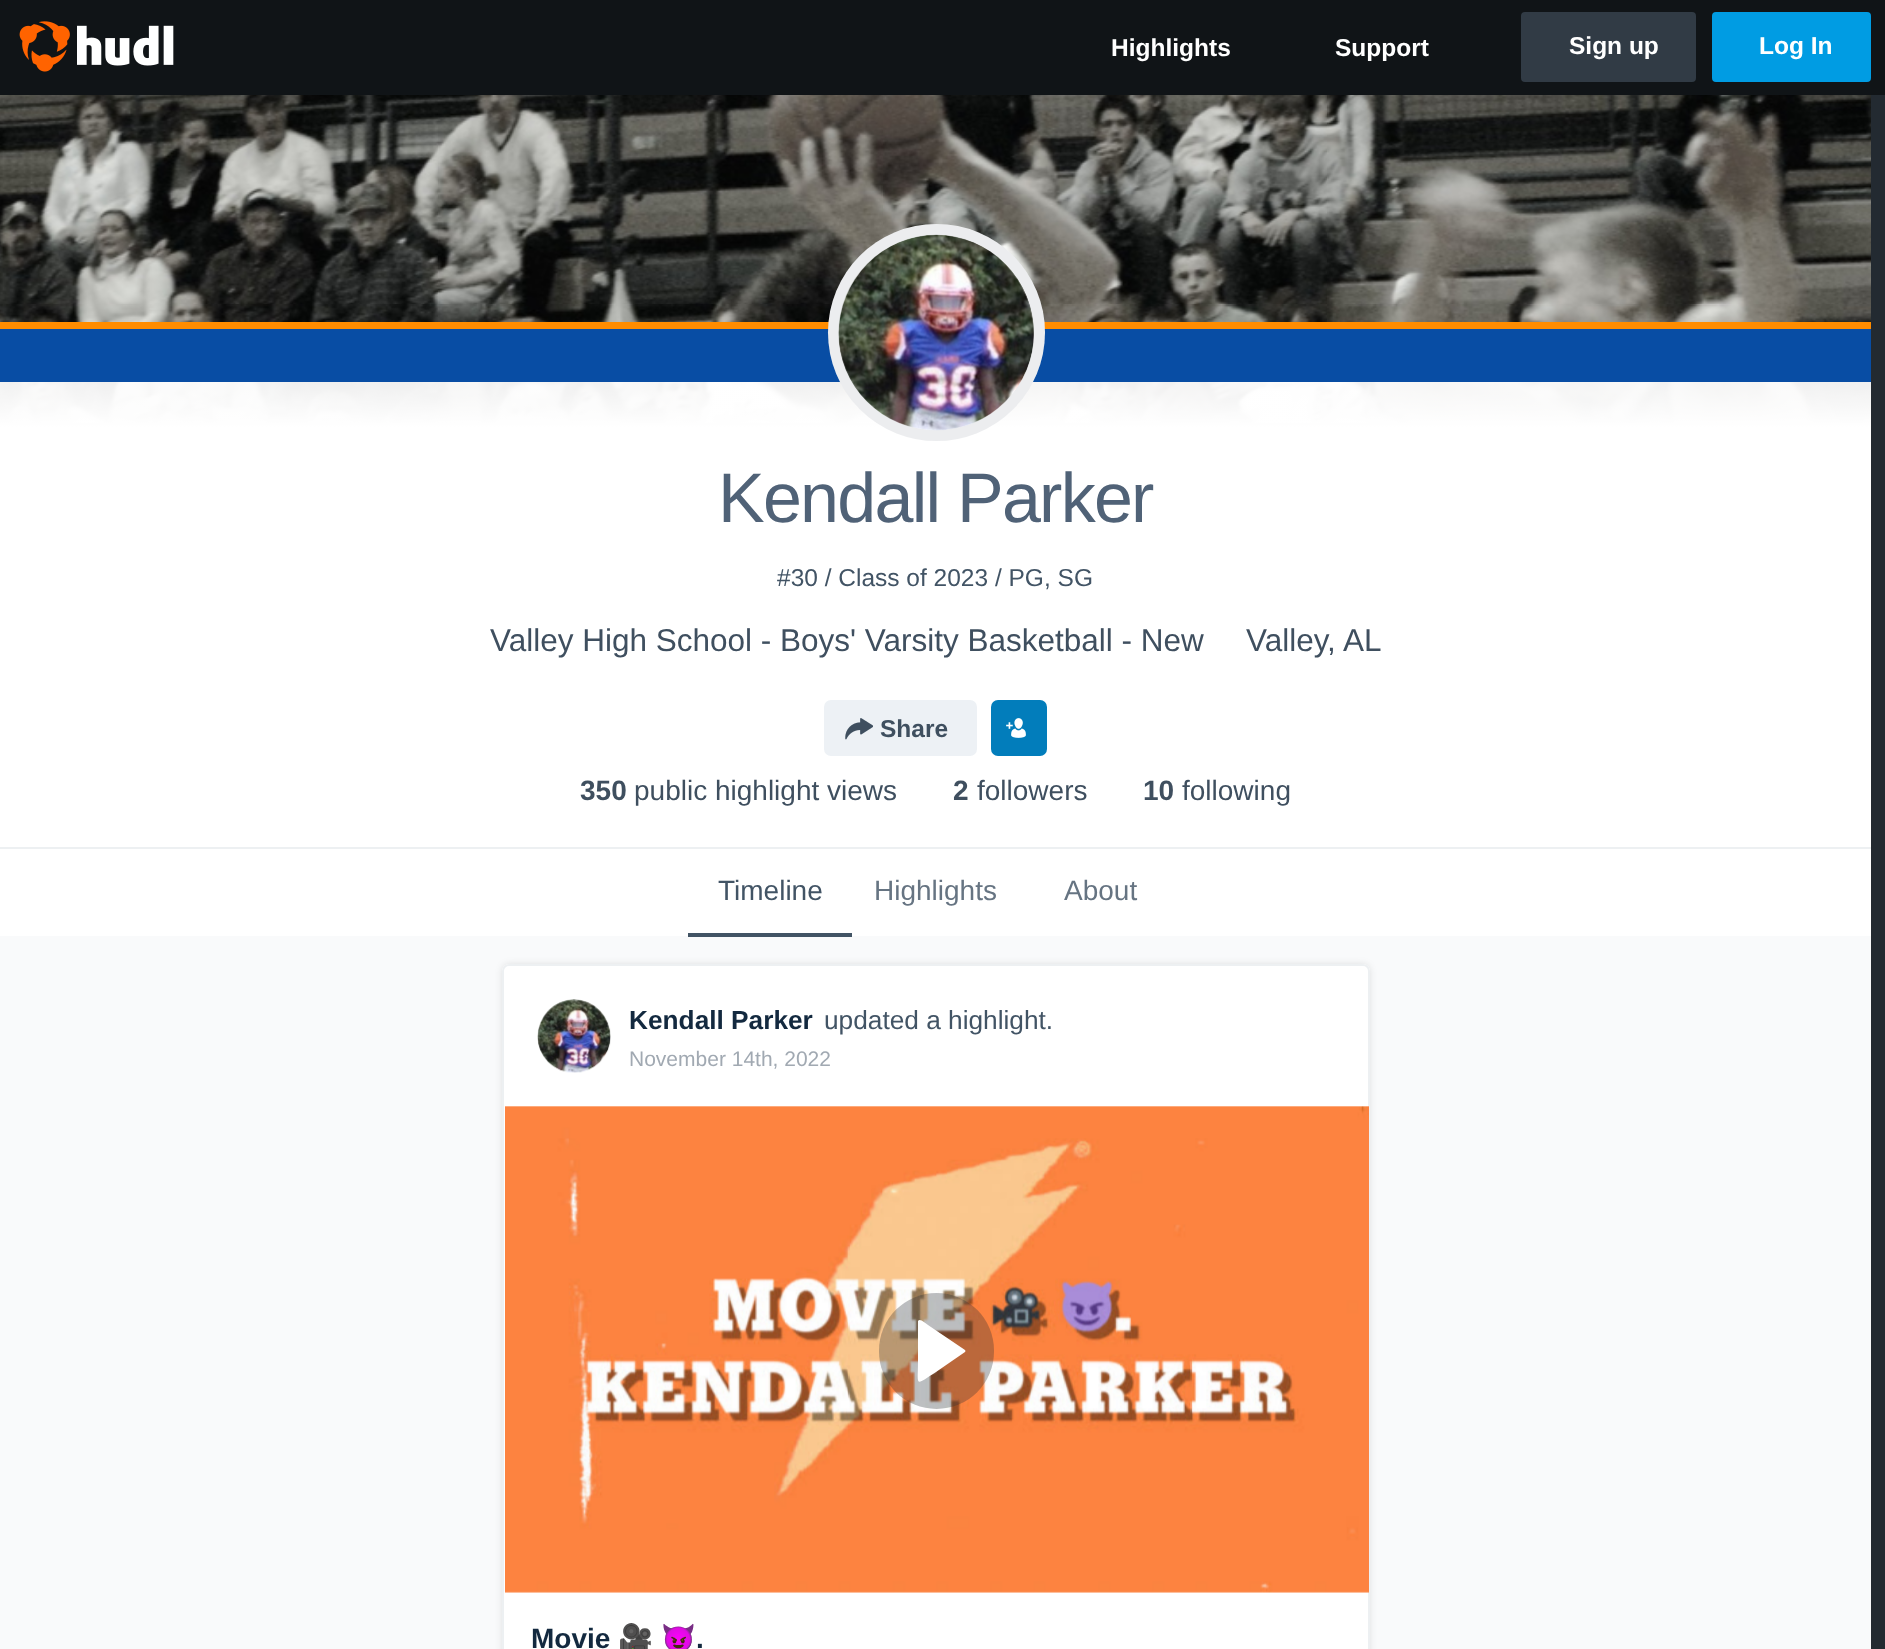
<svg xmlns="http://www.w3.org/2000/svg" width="1885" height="1649">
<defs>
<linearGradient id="g1" gradientUnits="userSpaceOnUse" x1="935" y1="322" x2="935" y2="847"><stop offset="0" stop-color="#fff" stop-opacity="0.85"/><stop offset="0.2" stop-color="#fff"/></linearGradient>
</defs>
<rect width="100%" height="100%" fill="#232a31"/>
<rect width="1885" height="95" fill="#101417"/>
<image x="19" y="21" width="155" height="51" href="media/1.png"/>
<text x="1111" y="56" style="font-family:Liberation Sans;font-size:24.5px;font-weight:bold;fill:#fff">Highlights</text>
<text x="1335" y="56" style="font-family:Liberation Sans;font-size:24.5px;font-weight:bold;fill:#fff">Support</text>
<rect x="1523.5" y="14.5" width="170" height="65" rx="1.5" fill="#313b45" stroke="#313b45" stroke-width="5"/>
<text x="1569" y="54" style="font-family:Liberation Sans;font-size:24.5px;font-weight:bold;fill:#fff">Sign up</text>
<rect x="1714.5" y="14.5" width="154" height="65" rx="1.5" fill="#009ce3" stroke="#009ce3" stroke-width="5"/>
<text x="1759" y="54" style="font-family:Liberation Sans;font-size:24.5px;font-weight:bold;fill:#fff">Log In</text>
<image x="0" y="95" width="1871" height="328" href="media/2.png"/>
<rect y="382" width="1871" height="465" fill="url(#g1)"/>
<rect y="847" width="1871" height="2" fill="#edf0f2"/>
<rect y="322" width="1871" height="7" fill="#ff8c00"/>
<rect y="329" width="1871" height="53" fill="#084da4"/>
<circle cx="936.5" cy="332.5" r="108.5" fill="#fff"/>
<circle cx="936.5" cy="332.5" r="103" fill="none" stroke="#45525e1a" stroke-width="11"/>
<image x="838" y="234" width="196" height="197" href="media/3.png"/>
<text x="718" y="522" style="font-family:Liberation Sans;font-size:70px;letter-spacing:-1.75px;fill:#506277">Kendall Parker</text>
<text x="777" y="586" style="font-family:Liberation Sans;font-size:24.5px;fill:#425465">#30 / Class of 2023 / PG, SG</text>
<text x="490" y="651" style="font-family:Liberation Sans;font-size:31.5px;fill:#3f4f5f">Valley High School - Boys' Varsity Basketball - New</text>
<text x="1246" y="651" style="font-family:Liberation Sans;font-size:31.5px;fill:#3f4f5f">Valley, AL</text>
<rect x="824" y="700" width="153" height="56" rx="7" fill="#edf1f5"/>
<image x="845" y="718" width="28" height="22" href="media/4.png"/>
<text x="880" y="737" style="font-family:Liberation Sans;font-size:24.5px;font-weight:bold;fill:#3f4f5f">Share</text>
<rect x="991" y="700" width="56" height="56" rx="7" fill="#027dbb"/>
<image x="1006" y="718" width="20" height="20" href="media/5.png"/>
<text x="580" y="800" style="font-family:Liberation Sans;font-size:28px;font-weight:bold;fill:#3f4f5f">350</text>
<text x="634" y="800" style="font-family:Liberation Sans;font-size:28px;fill:#3f4f5f">public highlight views</text>
<text x="953" y="800" style="font-family:Liberation Sans;font-size:28px;font-weight:bold;fill:#3f4f5f">2</text>
<text x="977" y="800" style="font-family:Liberation Sans;font-size:28px;fill:#3f4f5f">followers</text>
<text x="1143" y="800" style="font-family:Liberation Sans;font-size:28px;font-weight:bold;fill:#3f4f5f">10</text>
<text x="1182" y="800" style="font-family:Liberation Sans;font-size:28px;fill:#3f4f5f">following</text>
<rect y="849" width="1871" height="87" fill="#fff"/>
<rect y="936" width="1871" height="713" fill="#f9fafb"/>
<rect x="688" y="933" width="164" height="4" fill="#13293fcc"/>
<text x="718" y="900" style="font-family:Liberation Sans;font-size:28px;fill:#425465">Timeline</text>
<text x="874" y="900" style="font-family:Liberation Sans;font-size:28px;fill:#667482">Highlights</text>
<text x="1064" y="900" style="font-family:Liberation Sans;font-size:28px;fill:#667482">About</text>
<rect x="502" y="964" width="868" height="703" rx="7" fill="#0000001a" filter="blur(3.5px)"/>
<path d="M509 964h854c4 0 7 3 7 7v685h-868v-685c0-4 3-7 7-7z" fill="#fff"/>
<rect x="503" y="965" width="866" height="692" rx="6" fill="none" stroke="#edf0f2" stroke-width="2"/>
<image x="537" y="999" width="74" height="74" href="media/6.png"/>
<text x="629" y="1029" style="font-family:Liberation Sans;font-size:26.25px;font-weight:bold;fill:#13293f">Kendall Parker</text>
<text x="824" y="1029" style="font-family:Liberation Sans;font-size:26.25px;fill:#425465">updated a highlight.</text>
<text x="629" y="1066" style="font-family:Liberation Sans;font-size:21px;fill:#a1a9b2">November 14th, 2022</text>
<image x="505" y="1106" width="864" height="487" href="media/7.png"/>
<rect x="879" y="1293" width="115" height="116" rx="57.5" fill="#232a314d"/>
<path d="M918 1321v40c0 26-4 25 18 11l29-20c1-1 0-2 0-2l-37-25c-3-2-8-7-10-4z" fill="#fff" fill-rule="evenodd"/>
<text x="531" y="1648" style="font-family:Liberation Sans;font-size:28px;font-weight:bold;fill:#13293f">Movie</text>
<text x="618" y="1648" style="font-family:Noto Color Emoji;font-size:28px;font-weight:bold;fill:#13293f">🎥</text>
<text x="661" y="1648" style="font-family:Noto Color Emoji;font-size:28px;font-weight:bold;fill:#13293f">😈</text>
<text x="696" y="1648" style="font-family:Liberation Sans;font-size:28px;font-weight:bold;fill:#13293f">.</text>
</svg>
